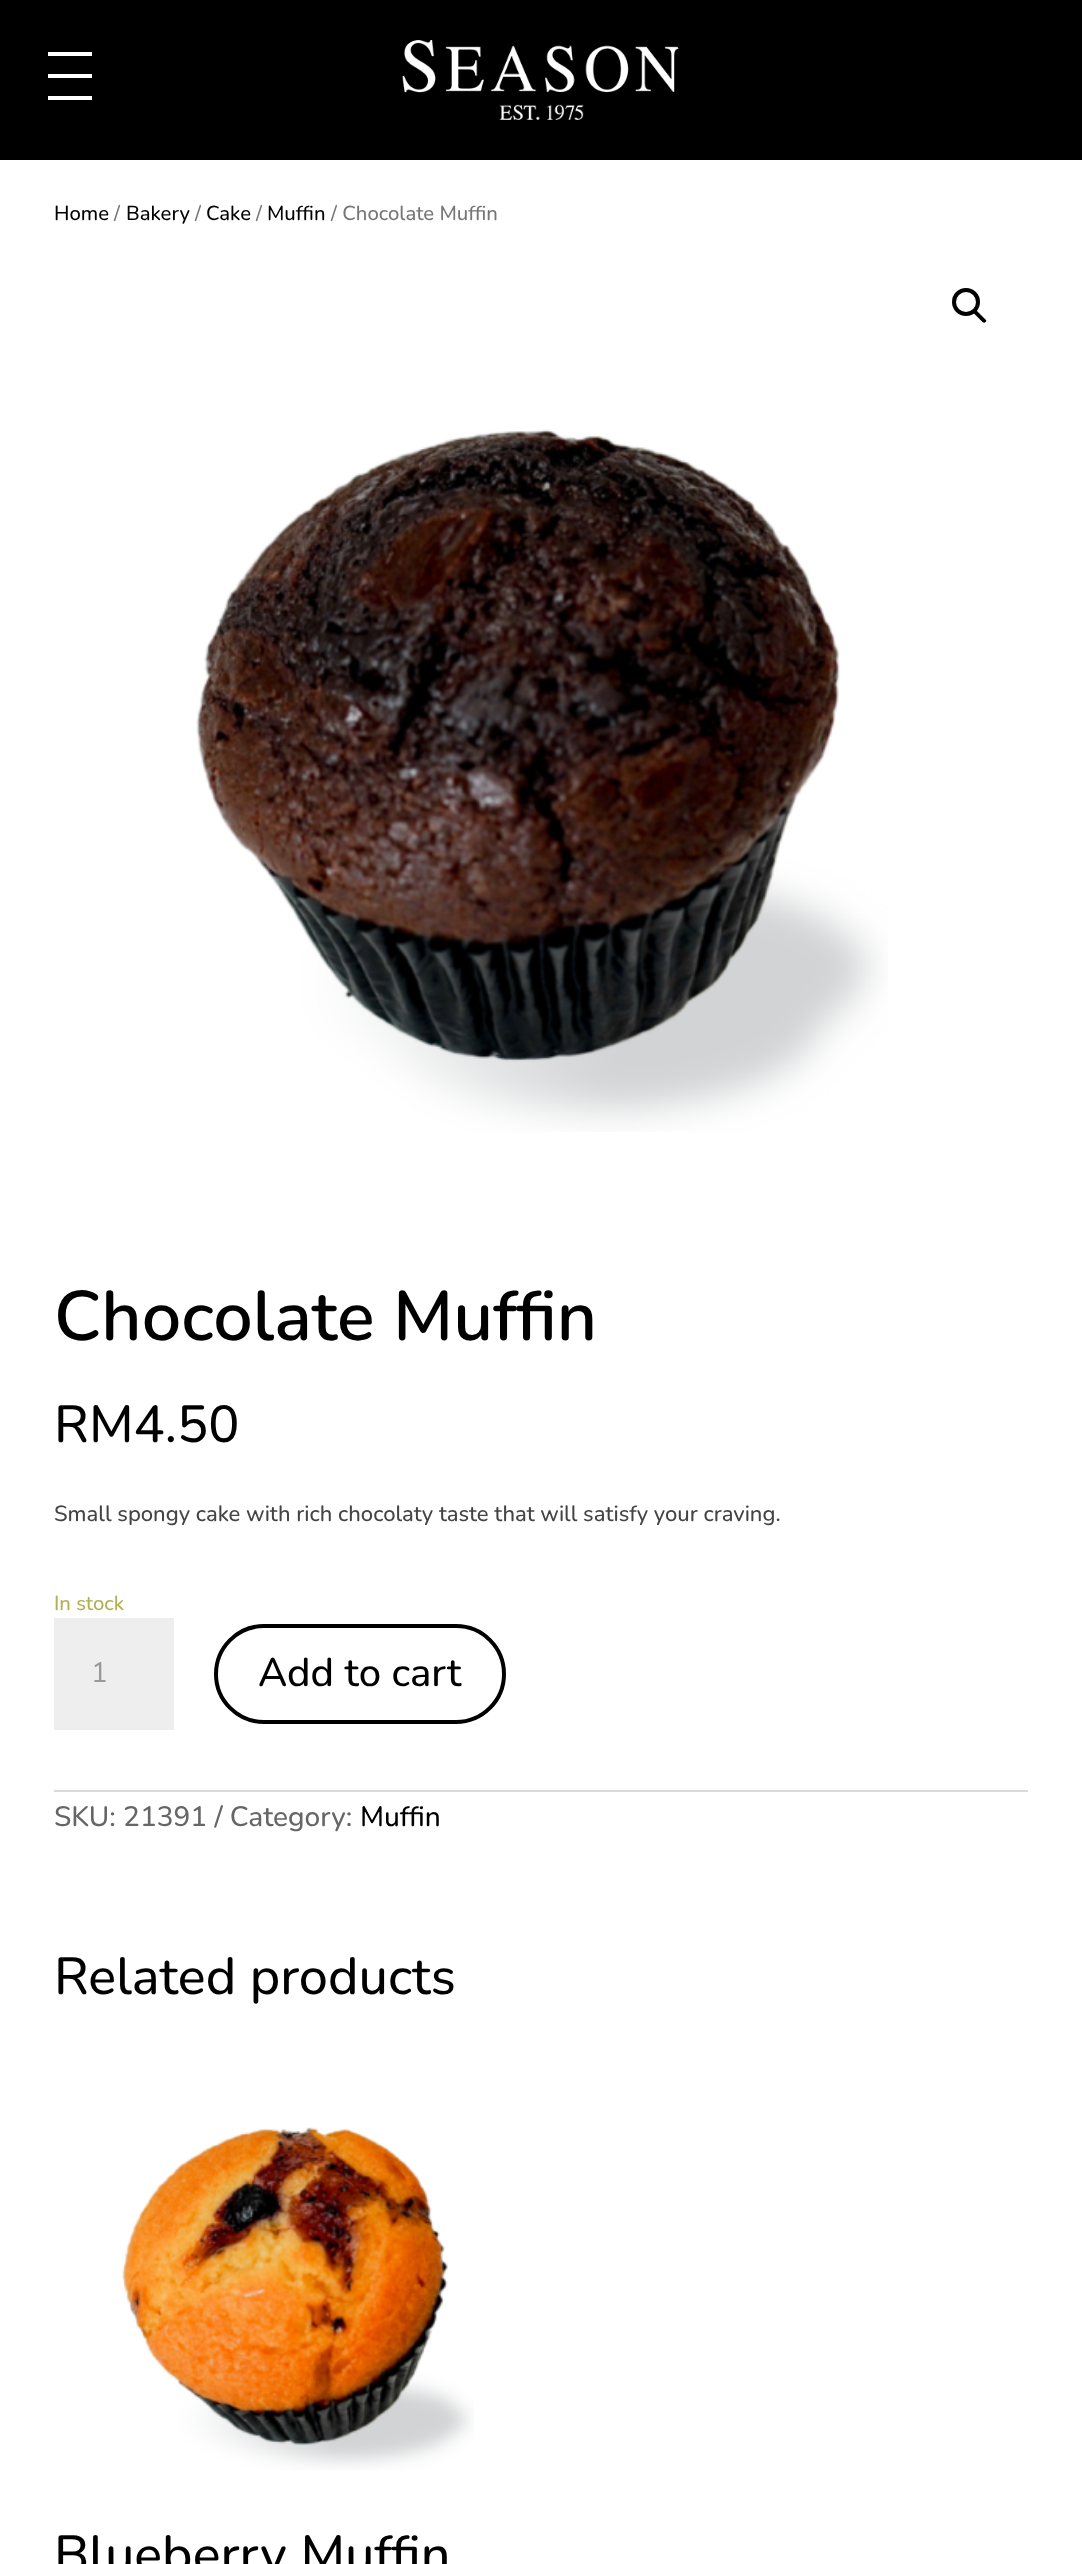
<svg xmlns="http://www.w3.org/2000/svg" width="1082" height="2564">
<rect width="100%" height="100%" fill="#000"/>
<rect x="48" y="52" width="44" height="4" fill="#fff"/>
<rect x="48" y="74" width="44" height="4" fill="#fff"/>
<rect x="48" y="96" width="44" height="4" fill="#fff"/>
<image x="402" y="40" width="277" height="80" href="media/1.png"/>
<rect y="160" width="1082" height="2404" fill="#fff"/>
<text x="54" y="220" style="font-family:Nunito;font-size:20.25px;font-weight:200;fill:#000">Home</text>
<text x="114" y="220" style="font-family:Nunito;font-size:20.25px;font-weight:200;fill:#767676">/</text>
<text x="126" y="220" style="font-family:Nunito;font-size:20.25px;font-weight:200;fill:#000">Bakery</text>
<text x="195" y="220" style="font-family:Nunito;font-size:20.25px;font-weight:200;fill:#767676">/</text>
<text x="206" y="220" style="font-family:Nunito;font-size:20.25px;font-weight:200;fill:#000">Cake</text>
<text x="256" y="220" style="font-family:Nunito;font-size:20.25px;font-weight:200;fill:#767676">/</text>
<text x="267" y="220" style="font-family:Nunito;font-size:20.25px;font-weight:200;fill:#000">Muffin</text>
<text x="331" y="220" style="font-family:Nunito;font-size:20.25px;font-weight:200;fill:#767676">/ Chocolate Muffin</text>
<circle cx="966" cy="302" r="12" fill="none" stroke="#000" stroke-width="4"/>
<path d="M974 311c1-1 2.5-1 3 0l8.5 8.5c1 .5 1 2 0 2.5c-.5 1-2 1-3 0l-8.5-8.5c-.5-.5-.5-2 0-2.5z" fill="#000"/>
<image x="196" y="429" width="692" height="703" href="media/2.png"/>
<text x="54" y="1340" style="font-family:'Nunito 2';font-size:70px;font-weight:200;fill:#000">Chocolate Muffin</text>
<text x="54" y="1442" style="font-family:Nunito;font-size:52px;font-weight:200;fill:#000">RM4.50</text>
<text x="54" y="1521" style="font-family:Nunito;font-size:22px;font-weight:200;fill:#444">Small spongy cake with rich chocolaty taste that will satisfy your craving.</text>
<text x="54" y="1610" style="font-family:Nunito;font-size:20.25px;font-weight:200;fill:#b3af54">In stock</text>
<rect x="54" y="1618" width="120" height="112" fill="#eee"/>
<text x="91" y="1682" style="font-family:'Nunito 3';font-size:28px;font-weight:200;fill:#999">1</text>
<rect x="216" y="1626" width="288" height="96" rx="48" fill="none" stroke="#000" stroke-width="4"/>
<text x="258" y="1686" style="font-family:Nunito;font-size:40px;font-weight:200;fill:#000">Add to cart</text>
<rect x="54" y="1790" width="974" height="2" fill="#dadada"/>
<text x="54" y="1826" style="font-family:Nunito;font-size:28px;font-weight:200;fill:#666">SKU: 21391 / Category:</text>
<text x="360" y="1826" style="font-family:Nunito;font-size:28px;font-weight:200;fill:#000">Muffin</text>
<text x="54" y="1994" style="font-family:Nunito;font-size:52px;font-weight:200;fill:#000">Related products</text>
<image x="122" y="2127" width="352" height="343" href="media/3.png"/>
<text x="54" y="2572" style="font-family:Nunito;font-size:52px;font-weight:200;fill:#000">Blueberry Muffin</text>
</svg>
